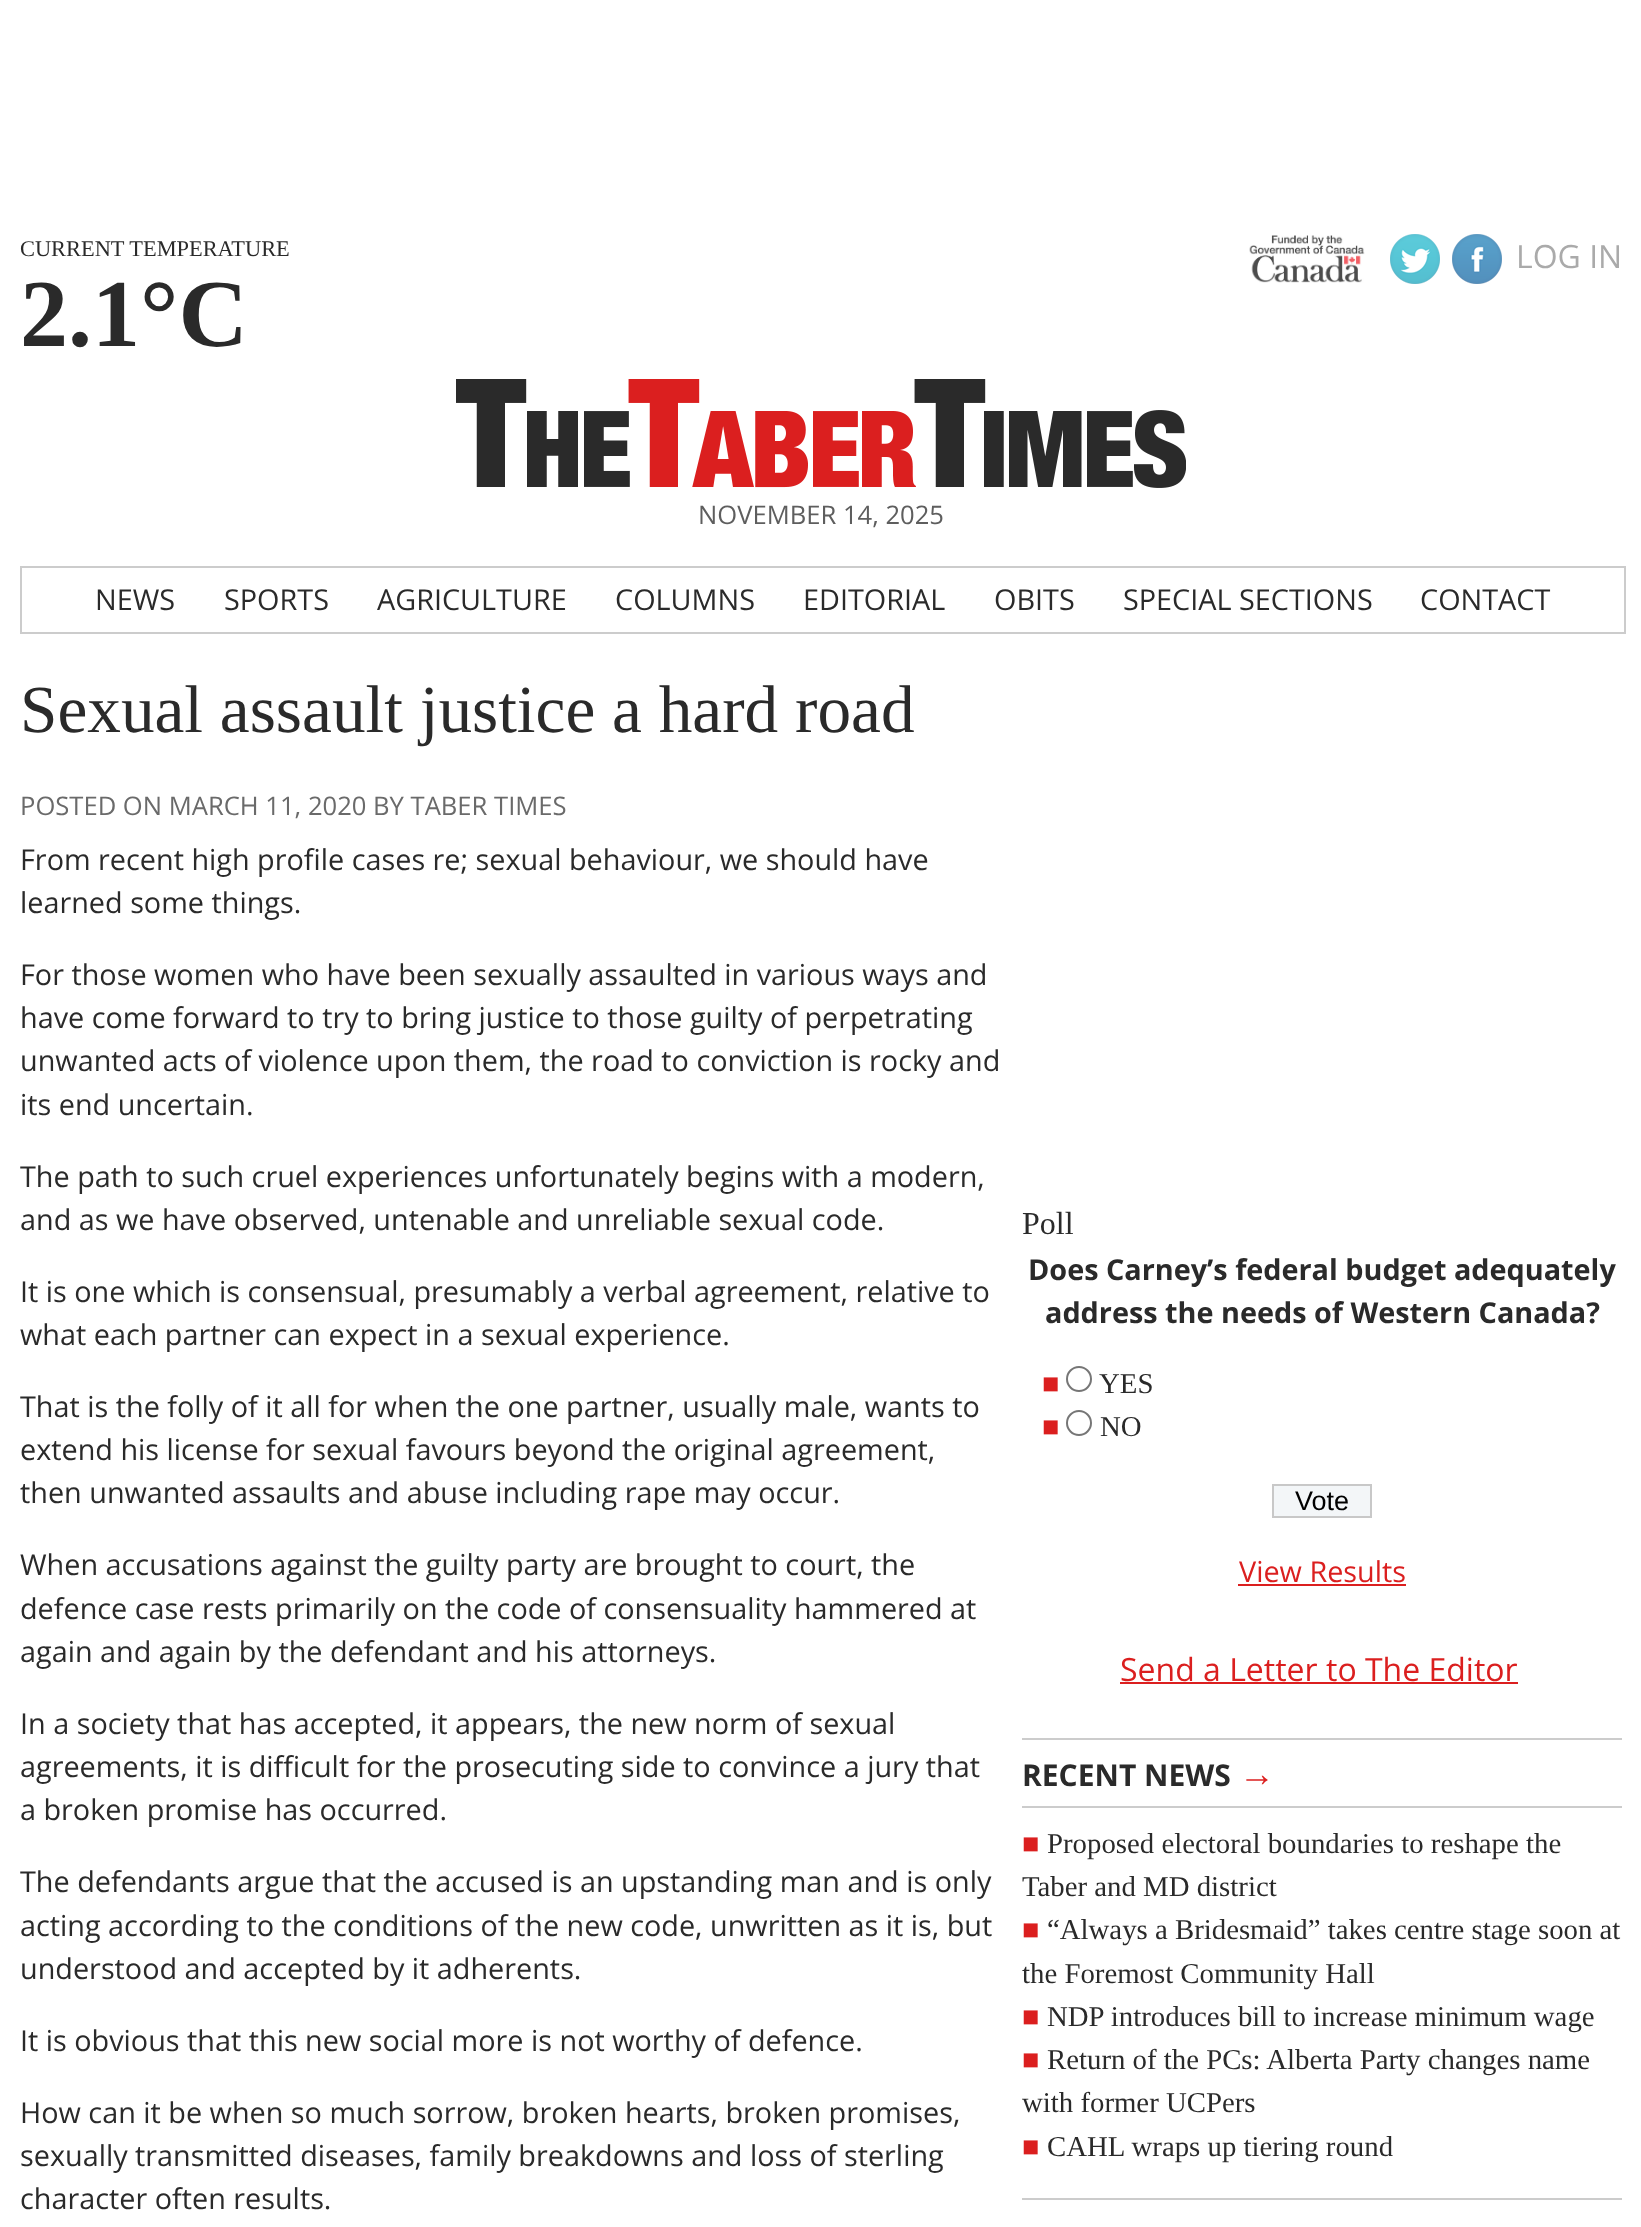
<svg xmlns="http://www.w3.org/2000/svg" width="1641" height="2227">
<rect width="100%" height="100%" fill="#fff"/>
<text x="20" y="256" style="font-family:Liberation Serif;font-size:22.4px;fill:#2a2a2a">CURRENT TEMPERATURE</text>
<text x="20" y="346" style="font-family:Liberation Serif;font-size:96px;font-weight:bold;fill:#2a2a2a">2.1°C</text>
<image x="1249" y="235" width="116" height="48" href="media/1.png"/>
<image x="1390" y="234" width="50" height="50" href="media/2.png"/>
<image x="1452" y="234" width="50" height="50" href="media/3.png"/>
<text x="1516" y="268" style="font-family:Open Sans;font-size:32px;fill:#aaa">LOG IN</text>
<image x="456" y="379" width="730" height="109" href="media/4.png"/>
<text x="698" y="524" style="font-family:Open Sans;font-size:25.6px;fill:#5e5e5e">NOVEMBER 14, 2025</text>
<rect x="21" y="567" width="1604" height="66" fill="none" stroke="#ccc" stroke-width="2"/>
<text x="95" y="610" style="font-family:Open Sans;font-size:28.8px;fill:#2a2a2a">NEWS</text>
<text x="224" y="610" style="font-family:Open Sans;font-size:28.8px;fill:#2a2a2a">SPORTS</text>
<text x="377" y="610" style="font-family:Open Sans;font-size:28.8px;fill:#2a2a2a">AGRICULTURE</text>
<text x="615" y="610" style="font-family:Open Sans;font-size:28.8px;fill:#2a2a2a">COLUMNS</text>
<text x="803" y="610" style="font-family:Open Sans;font-size:28.8px;fill:#2a2a2a">EDITORIAL</text>
<text x="994" y="610" style="font-family:Open Sans;font-size:28.8px;fill:#2a2a2a">OBITS</text>
<text x="1123" y="610" style="font-family:Open Sans;font-size:28.8px;fill:#2a2a2a">SPECIAL SECTIONS</text>
<text x="1420" y="610" style="font-family:Open Sans;font-size:28.8px;fill:#2a2a2a">CONTACT</text>
<text x="20" y="732" style="font-family:Liberation Serif;font-size:67.25px;fill:#2a2a2a">Sexual assault justice a hard road</text>
<text x="20" y="815" style="font-family:Open Sans;font-size:25.6px;fill:#6a6a6a">POSTED ON MARCH 11, 2020 BY TABER TIMES</text>
<text x="20" y="870" style="font-family:Open Sans;font-size:28.8px;fill:#2a2a2a">From recent high profile cases re; sexual behaviour, we should have</text>
<text x="20" y="913" style="font-family:Open Sans;font-size:28.8px;fill:#2a2a2a">learned some things.</text>
<text x="20" y="985" style="font-family:Open Sans;font-size:28.8px;fill:#2a2a2a">For those women who have been sexually assaulted in various ways and</text>
<text x="20" y="1028" style="font-family:Open Sans;font-size:28.8px;fill:#2a2a2a">have come forward to try to bring justice to those guilty of perpetrating</text>
<text x="20" y="1071" style="font-family:Open Sans;font-size:28.8px;fill:#2a2a2a">unwanted acts of violence upon them, the road to conviction is rocky and</text>
<text x="20" y="1115" style="font-family:Open Sans;font-size:28.8px;fill:#2a2a2a">its end uncertain.</text>
<text x="20" y="1187" style="font-family:Open Sans;font-size:28.8px;fill:#2a2a2a">The path to such cruel experiences unfortunately begins with a modern,</text>
<text x="20" y="1230" style="font-family:Open Sans;font-size:28.8px;fill:#2a2a2a">and as we have observed, untenable and unreliable sexual code.</text>
<text x="20" y="1302" style="font-family:Open Sans;font-size:28.8px;fill:#2a2a2a">It is one which is consensual, presumably a verbal agreement, relative to</text>
<text x="20" y="1345" style="font-family:Open Sans;font-size:28.8px;fill:#2a2a2a">what each partner can expect in a sexual experience.</text>
<text x="20" y="1417" style="font-family:Open Sans;font-size:28.8px;fill:#2a2a2a">That is the folly of it all for when the one partner, usually male, wants to</text>
<text x="20" y="1460" style="font-family:Open Sans;font-size:28.8px;fill:#2a2a2a">extend his license for sexual favours beyond the original agreement,</text>
<text x="20" y="1503" style="font-family:Open Sans;font-size:28.8px;fill:#2a2a2a">then unwanted assaults and abuse including rape may occur.</text>
<text x="20" y="1575" style="font-family:Open Sans;font-size:28.8px;fill:#2a2a2a">When accusations against the guilty party are brought to court, the</text>
<text x="20" y="1619" style="font-family:Open Sans;font-size:28.8px;fill:#2a2a2a">defence case rests primarily on the code of consensuality hammered at</text>
<text x="20" y="1662" style="font-family:Open Sans;font-size:28.8px;fill:#2a2a2a">again and again by the defendant and his attorneys.</text>
<text x="20" y="1734" style="font-family:Open Sans;font-size:28.8px;fill:#2a2a2a">In a society that has accepted, it appears, the new norm of sexual</text>
<text x="20" y="1777" style="font-family:Open Sans;font-size:28.8px;fill:#2a2a2a">agreements, it is difficult for the prosecuting side to convince a jury that</text>
<text x="20" y="1820" style="font-family:Open Sans;font-size:28.8px;fill:#2a2a2a">a broken promise has occurred.</text>
<text x="20" y="1892" style="font-family:Open Sans;font-size:28.8px;fill:#2a2a2a">The defendants argue that the accused is an upstanding man and is only</text>
<text x="20" y="1936" style="font-family:Open Sans;font-size:28.8px;fill:#2a2a2a">acting according to the conditions of the new code, unwritten as it is, but</text>
<text x="20" y="1979" style="font-family:Open Sans;font-size:28.8px;fill:#2a2a2a">understood and accepted by it adherents.</text>
<text x="20" y="2051" style="font-family:Open Sans;font-size:28.8px;fill:#2a2a2a">It is obvious that this new social more is not worthy of defence.</text>
<text x="20" y="2123" style="font-family:Open Sans;font-size:28.8px;fill:#2a2a2a">How can it be when so much sorrow, broken hearts, broken promises,</text>
<text x="20" y="2166" style="font-family:Open Sans;font-size:28.8px;fill:#2a2a2a">sexually transmitted diseases, family breakdowns and loss of sterling</text>
<text x="20" y="2209" style="font-family:Open Sans;font-size:28.8px;fill:#2a2a2a">character often results.</text>
<text x="1022" y="1234" style="font-family:Liberation Serif;font-size:32px;fill:#2a2a2a">Poll</text>
<text x="1028" y="1280" style="font-family:Open Sans;font-size:28.8px;font-weight:bold;fill:#2a2a2a">Does Carney’s federal budget adequately</text>
<text x="1045" y="1323" style="font-family:Open Sans;font-size:28.8px;font-weight:bold;fill:#2a2a2a">address the needs of Western Canada?</text>
<text x="1042" y="1393" style="font-family:Liberation Serif;font-size:28.8px;fill:#db1f1f">■</text>
<circle cx="1079" cy="1379" r="12" fill="none" stroke="#767676" stroke-width="2"/>
<text x="1099" y="1393" style="font-family:Liberation Serif;font-size:28.8px;fill:#2a2a2a">YES</text>
<text x="1042" y="1436" style="font-family:Liberation Serif;font-size:28.8px;fill:#db1f1f">■</text>
<circle cx="1079" cy="1423" r="12" fill="none" stroke="#767676" stroke-width="2"/>
<text x="1100" y="1436" style="font-family:Liberation Serif;font-size:28.8px;fill:#2a2a2a">NO</text>
<rect x="1273" y="1485" width="98" height="32" fill="#f3f6f8" stroke="#c8c8c8" stroke-width="2"/>
<text x="1295" y="1510" style="font-family:Liberation Sans;font-size:27px;fill:#000">Vote</text>
<text x="1239" y="1582" style="font-family:Open Sans;font-size:28.8px;fill:#db1f1f">View Results</text>
<rect x="1238" y="1584" width="168" height="2" fill="#db1f1f"/>
<text x="1120" y="1681" style="font-family:Open Sans;font-size:32px;fill:#db1f1f">Send a Letter to The Editor</text>
<rect x="1120" y="1682" width="398" height="2" fill="#db1f1f"/>
<rect x="1022" y="1738" width="600" height="2" fill="#ccc"/>
<rect x="1022" y="1806" width="600" height="2" fill="#ccc"/>
<text x="1022" y="1786" style="font-family:Open Sans;font-size:30px;font-weight:bold;fill:#2a2a2a">RECENT NEWS</text>
<text x="1239" y="1786" style="font-family:Liberation Sans;font-size:36px;font-weight:bold;fill:#db1f1f">→</text>
<text x="1022" y="1853" style="font-family:Liberation Serif;font-size:28.8px;fill:#db1f1f">■</text>
<text x="1047" y="1853" style="font-family:Liberation Serif;font-size:28.8px;fill:#2a2a2a">Proposed electoral boundaries to reshape the</text>
<text x="1022" y="1896" style="font-family:Liberation Serif;font-size:28.8px;fill:#2a2a2a">Taber and MD district</text>
<text x="1022" y="1939" style="font-family:Liberation Serif;font-size:28.8px;fill:#db1f1f">■</text>
<text x="1047" y="1939" style="font-family:Liberation Serif;font-size:28.8px;fill:#2a2a2a">“Always a Bridesmaid” takes centre stage soon at</text>
<text x="1022" y="1983" style="font-family:Liberation Serif;font-size:28.8px;fill:#2a2a2a">the Foremost Community Hall</text>
<text x="1022" y="2026" style="font-family:Liberation Serif;font-size:28.8px;fill:#db1f1f">■</text>
<text x="1047" y="2026" style="font-family:Liberation Serif;font-size:28.8px;fill:#2a2a2a">NDP introduces bill to increase minimum wage</text>
<text x="1022" y="2069" style="font-family:Liberation Serif;font-size:28.8px;fill:#db1f1f">■</text>
<text x="1047" y="2069" style="font-family:Liberation Serif;font-size:28.8px;fill:#2a2a2a">Return of the PCs: Alberta Party changes name</text>
<text x="1022" y="2112" style="font-family:Liberation Serif;font-size:28.8px;fill:#2a2a2a">with former UCPers</text>
<text x="1022" y="2156" style="font-family:Liberation Serif;font-size:28.8px;fill:#db1f1f">■</text>
<text x="1047" y="2156" style="font-family:Liberation Serif;font-size:28.8px;fill:#2a2a2a">CAHL wraps up tiering round</text>
<rect x="1022" y="2198" width="600" height="2" fill="#ccc"/>
</svg>
